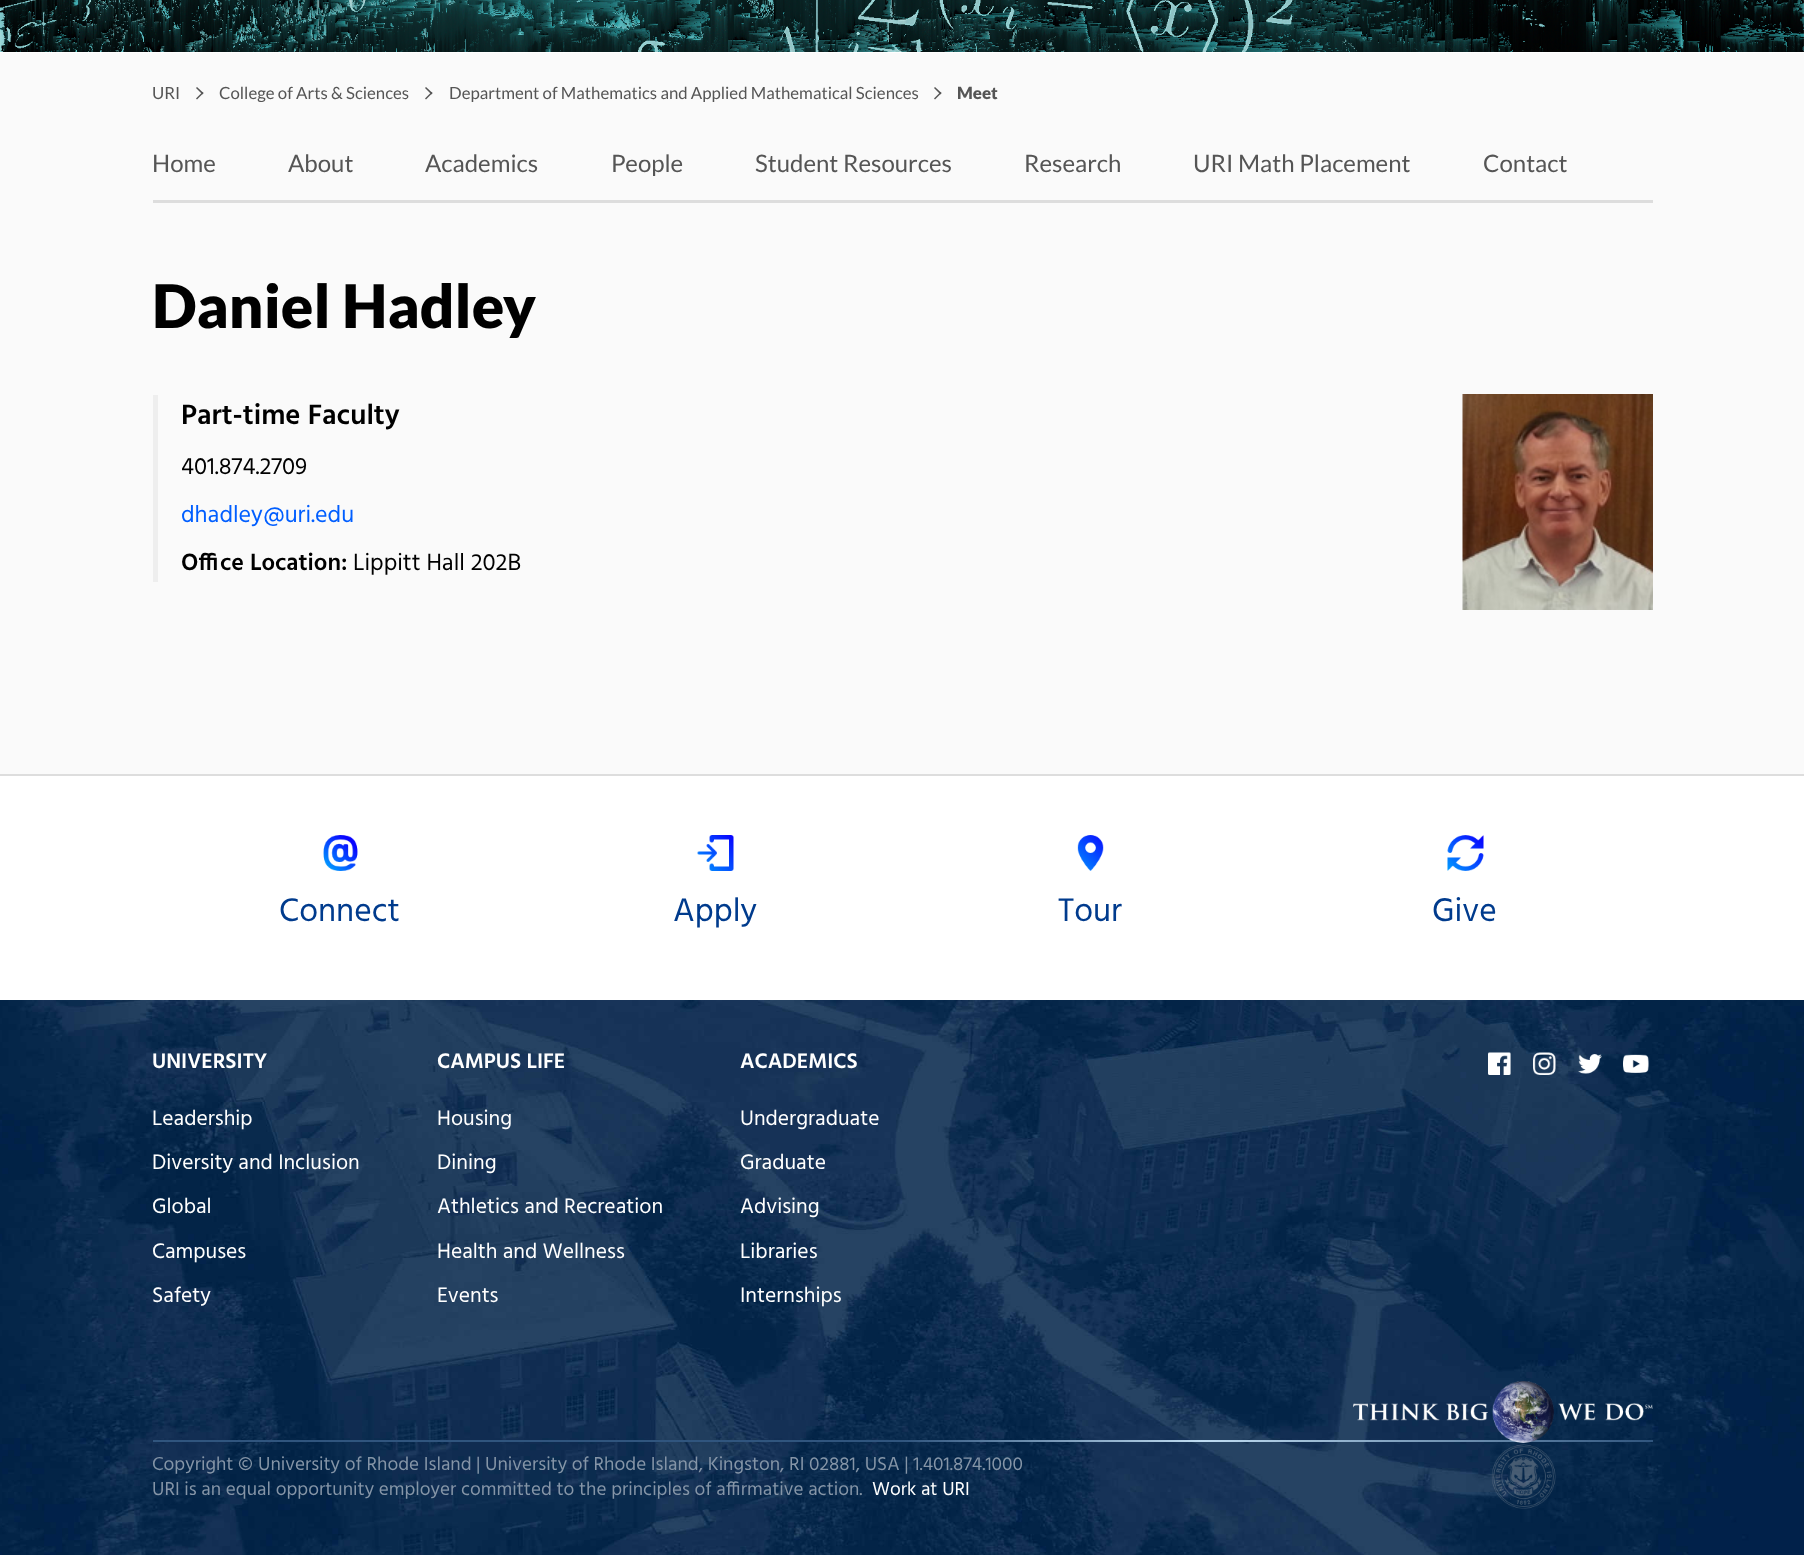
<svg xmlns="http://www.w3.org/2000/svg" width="1804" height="1555">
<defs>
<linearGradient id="g1" gradientUnits="userSpaceOnUse" x1="153" y1="1441" x2="1653" y2="1441"><stop offset="0.5" stop-color="#30557e"/><stop offset="0.7" stop-color="#c0ddf2"/><stop offset="1" stop-color="#30557e"/></linearGradient>
</defs>
<rect width="100%" height="100%" fill="#fafafa"/>
<rect y="52" width="1804" height="1" fill="#fff"/>
<image x="0" y="0" width="1804" height="52" href="media/1.png"/>
<text x="152" y="99" style="font-family:Lato;font-size:16.8px;fill:#555">URI</text>
<path d="M197 87l6.5 6l-1 1.5l-6.5-6.5z" fill="#555"/>
<path d="M202.5 92l1 1l-6.5 6.5l-1-1z" fill="#555"/>
<text x="219" y="99" style="font-family:Lato;font-size:16.8px;fill:#555">College of Arts &amp; Sciences</text>
<path d="M426 87l6.5 6l-1 1.5l-6.5-6.5z" fill="#555"/>
<path d="M431.5 92l1 1l-6.5 6.5l-1-1z" fill="#555"/>
<text x="449" y="99" style="font-family:Lato;font-size:16.8px;fill:#555">Department of Mathematics and Applied Mathematical Sciences</text>
<path d="M935 87l6.5 6l-1 1.5l-6.5-6.5z" fill="#555"/>
<path d="M940.5 92l1 1l-6.5 6.5l-1-1z" fill="#555"/>
<text x="957" y="99" style="font-family:Lato;font-size:16.8px;font-weight:900;fill:#555">Meet</text>
<rect x="153" y="200" width="1500" height="3" fill="#ddd"/>
<text x="152" y="172" style="font-family:Lato;font-size:24px;fill:#555">Home</text>
<text x="288" y="172" style="font-family:Lato;font-size:24px;fill:#555">About</text>
<text x="425" y="172" style="font-family:Lato;font-size:24px;fill:#555">Academics</text>
<text x="611" y="172" style="font-family:Lato;font-size:24px;fill:#555">People</text>
<text x="755" y="172" style="font-family:Lato;font-size:24px;fill:#555">Student Resources</text>
<text x="1024" y="172" style="font-family:Lato;font-size:24px;fill:#555">Research</text>
<text x="1193" y="172" style="font-family:Lato;font-size:24px;fill:#555">URI Math Placement</text>
<text x="1483" y="172" style="font-family:Lato;font-size:24px;fill:#555">Contact</text>
<text x="152" y="328" style="font-family:Lato;font-size:60px;font-weight:900;fill:#000">Daniel Hadley</text>
<rect x="153" y="395" width="5" height="187" fill="#eee"/>
<text x="181" y="424" style="font-family:Hind;font-size:28.75px;font-weight:600;fill:#000">Part-time Faculty</text>
<text x="181" y="474" style="font-family:Hind;font-size:24px;fill:#000">401.874.2709</text>
<text x="181" y="522" style="font-family:Hind;font-size:24px;fill:#005eff">dhadley@uri.edu</text>
<text x="181" y="570" style="font-family:Hind;font-size:24px;font-weight:600;fill:#000">Office Location:</text>
<text x="353" y="570" style="font-family:Hind;font-size:24px;fill:#000">Lippitt Hall 202B</text>
<image x="1462" y="394" width="191" height="216" href="media/2.png"/>
<rect y="776" width="1804" height="224" fill="#fff"/>
<rect y="774" width="1804" height="2" fill="#ddd"/>
<image x="323" y="835" width="35" height="36" href="media/3.png"/>
<text x="279" y="921" style="font-family:Hind;font-size:33.5px;fill:#003b8d">Connect</text>
<image x="697" y="835" width="37" height="36" href="media/4.png"/>
<text x="673" y="921" style="font-family:Hind;font-size:33.5px;fill:#003b8d">Apply</text>
<image x="1077" y="835" width="27" height="36" href="media/5.png"/>
<text x="1058" y="921" style="font-family:Hind;font-size:33.5px;fill:#003b8d">Tour</text>
<image x="1447" y="835" width="37" height="36" href="media/6.png"/>
<text x="1432" y="921" style="font-family:Hind;font-size:33.5px;fill:#003b8d">Give</text>
<image x="0" y="1000" width="1804" height="555" href="media/7.png"/>
<text x="152" y="1068" style="font-family:Hind;font-size:21.6px;font-weight:600;fill:#fff">UNIVERSITY</text>
<text x="152" y="1125" style="font-family:Hind;font-size:21.6px;fill:#fff">Leadership</text>
<text x="152" y="1169" style="font-family:Hind;font-size:21.6px;fill:#fff">Diversity and Inclusion</text>
<text x="152" y="1213" style="font-family:Hind;font-size:21.6px;fill:#fff">Global</text>
<text x="152" y="1258" style="font-family:Hind;font-size:21.6px;fill:#fff">Campuses</text>
<text x="152" y="1302" style="font-family:Hind;font-size:21.6px;fill:#fff">Safety</text>
<text x="437" y="1068" style="font-family:Hind;font-size:21.6px;font-weight:600;fill:#fff">CAMPUS LIFE</text>
<text x="437" y="1125" style="font-family:Hind;font-size:21.6px;fill:#fff">Housing</text>
<text x="437" y="1169" style="font-family:Hind;font-size:21.6px;fill:#fff">Dining</text>
<text x="437" y="1213" style="font-family:Hind;font-size:21.6px;fill:#fff">Athletics and Recreation</text>
<text x="437" y="1258" style="font-family:Hind;font-size:21.6px;fill:#fff">Health and Wellness</text>
<text x="437" y="1302" style="font-family:Hind;font-size:21.6px;fill:#fff">Events</text>
<text x="740" y="1068" style="font-family:Hind;font-size:21.6px;font-weight:600;fill:#fff">ACADEMICS</text>
<text x="740" y="1125" style="font-family:Hind;font-size:21.6px;fill:#fff">Undergraduate</text>
<text x="740" y="1169" style="font-family:Hind;font-size:21.6px;fill:#fff">Graduate</text>
<text x="740" y="1213" style="font-family:Hind;font-size:21.6px;fill:#fff">Advising</text>
<text x="740" y="1258" style="font-family:Hind;font-size:21.6px;fill:#fff">Libraries</text>
<text x="740" y="1302" style="font-family:Hind;font-size:21.6px;fill:#fff">Internships</text>
<image x="1488" y="1052" width="23" height="23" href="media/8.png"/>
<image x="1533" y="1052" width="23" height="23" href="media/9.png"/>
<image x="1578" y="1054" width="24" height="20" href="media/10.png"/>
<image x="1623" y="1054" width="26" height="19" href="media/11.png"/>
<rect x="153" y="1440" width="1500" height="2" fill="url(#g1)"/>
<image x="1353" y="1381" width="300" height="128" href="media/12.png"/>
<text x="152" y="1470" style="font-family:Hind;font-size:19.2px;fill:#8595a7">Copyright ©</text>
<text x="258" y="1470" style="font-family:Hind;font-size:19.2px;fill:#8595a7">University of Rhode Island</text>
<text x="476" y="1470" style="font-family:Hind;font-size:19.2px;fill:#8595a7">| University of Rhode Island, Kingston, RI 02881, USA | 1.401.874.1000</text>
<text x="152" y="1495" style="font-family:Hind;font-size:19.2px;fill:#8595a7">URI is an equal opportunity employer committed to the principles of affirmative action.</text>
<text x="872" y="1495" style="font-family:Hind;font-size:19.2px;fill:#fff">Work at URI</text>
</svg>
